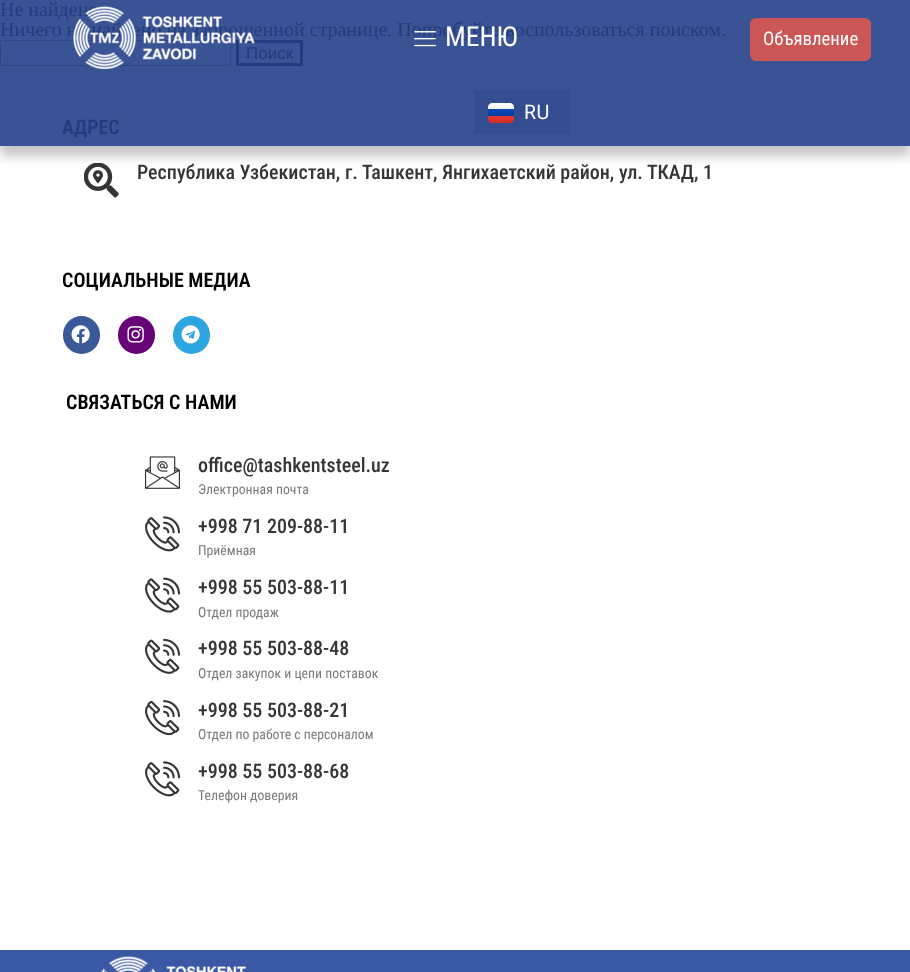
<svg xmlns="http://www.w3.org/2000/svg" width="910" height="972">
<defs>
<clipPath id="clip1"><rect x="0" y="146" width="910" height="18"/></clipPath>
<linearGradient id="g1" gradientUnits="userSpaceOnUse" x1="501" y1="103" x2="501" y2="109"><stop offset="0" stop-color="#fff"/><stop offset="1" stop-color="#f0f0f0"/></linearGradient>
<linearGradient id="g2" gradientUnits="userSpaceOnUse" x1="501" y1="109" x2="501" y2="116"><stop offset="0" stop-color="#0c47b7"/><stop offset="1" stop-color="#073da4"/></linearGradient>
<linearGradient id="g3" gradientUnits="userSpaceOnUse" x1="501" y1="116" x2="501" y2="122"><stop offset="0" stop-color="#e53b35"/><stop offset="1" stop-color="#d32e28"/></linearGradient>
</defs>
<rect width="100%" height="100%" fill="#fff"/>
<rect width="910" height="146" fill="#3a5394"/>
<text x="0" y="16" style="font-family:Liberation Serif;font-size:20px;fill:#233c7d">Не найдено</text>
<text x="0" y="36" style="font-family:Liberation Serif;font-size:20px;fill:#233c7d">Ничего не найдено на запрошенной странице. Попробуйте воспользоваться поиском.</text>
<rect x="0.5" y="40.5" width="230" height="25" rx="2" fill="#3a5394" stroke="#2d4787"/>
<rect x="237.5" y="41.5" width="64" height="23" fill="none" stroke="#233c7d" stroke-width="3"/>
<text x="246" y="59" style="font-family:Liberation Sans;font-size:17px;fill:#233c7d">Поиск</text>
<image x="84" y="163" width="35" height="35" href="media/3.png"/>
<g clip-path="url(#clip1)">
<rect y="10" width="910" height="146" fill="#0000003b" filter="blur(6px)"/>
</g>
<image x="73" y="6" width="182" height="64" href="media/1.png"/>
<image x="414" y="31" width="22" height="16" href="media/2.png"/>
<text x="445" y="46" style="font-family:Roboto Condensed;font-size:27.5px;fill:#fff">МЕНЮ</text>
<rect x="750" y="18" width="121" height="43" rx="6" fill="#cb5656"/>
<text x="763" y="45" style="font-family:Roboto Condensed;font-size:18.75px;fill:#fff">Объявление</text>
<rect x="475" y="90" width="95" height="44" fill="#334d90"/>
<path d="M492 103h18c2 0 4 2 4 4v2h-26v-2c0-2 2-4 4-4z" fill="url(#g1)"/>
<rect x="488" y="109" width="26" height="7" fill="url(#g2)"/>
<path d="M488 116h26v3c0 2-2 4-4 4h-18c-2 0-4-2-4-4z" fill="url(#g3)"/>
<text x="524" y="119" style="font-family:Roboto Flex;font-size:20px;fill:#fff">RU</text>
<text x="62" y="134" style="font-family:Roboto Condensed;font-size:20px;font-weight:600;fill:#233c7d">АДРЕС</text>
<text x="137" y="179" style="font-family:Roboto Condensed;font-size:20px;font-weight:500;fill:#363435">Республика Узбекистан, г. Ташкент, Янгихаетский район, ул. ТКАД, 1</text>
<text x="62" y="287" style="font-family:Roboto Condensed;font-size:20px;font-weight:600;fill:#000">СОЦИАЛЬНЫЕ МЕДИА</text>
<rect x="63" y="316" width="37" height="38" rx="18.5" fill="#3b5998"/>
<image x="71" y="325" width="19" height="19" href="media/4.png"/>
<rect x="118" y="316" width="37" height="38" rx="18.5" fill="#680377"/>
<image x="127" y="326" width="17" height="17" href="media/5.png"/>
<rect x="173" y="316" width="37" height="38" rx="18.5" fill="#2ca5e0"/>
<image x="181" y="325" width="19" height="19" href="media/6.png"/>
<text x="66" y="409" style="font-family:Roboto Condensed;font-size:20px;font-weight:600;fill:#000">СВЯЗАТЬСЯ С НАМИ</text>
<image x="145" y="456" width="35" height="33" href="media/7.png"/>
<text x="198" y="472" style="font-family:Roboto Condensed;font-size:20px;font-weight:500;fill:#363435">office@tashkentsteel.uz</text>
<text x="198" y="494" style="font-family:Roboto Condensed;font-size:13.75px;fill:#7a7a7a">Электронная почта</text>
<image x="145" y="516" width="35" height="36" href="media/8.png"/>
<text x="198" y="533" style="font-family:Roboto Condensed;font-size:20px;font-weight:500;fill:#363435">+998 71 209-88-11</text>
<text x="198" y="555" style="font-family:Roboto Condensed;font-size:13.75px;fill:#7a7a7a">Приёмная</text>
<image x="145" y="577" width="35" height="36" href="media/9.png"/>
<text x="198" y="594" style="font-family:Roboto Condensed;font-size:20px;font-weight:500;fill:#363435">+998 55 503-88-11</text>
<text x="198" y="617" style="font-family:Roboto Condensed;font-size:13.75px;fill:#7a7a7a">Отдел продаж</text>
<image x="145" y="638" width="35" height="36" href="media/10.png"/>
<text x="198" y="655" style="font-family:Roboto Condensed;font-size:20px;font-weight:500;fill:#363435">+998 55 503-88-48</text>
<text x="198" y="678" style="font-family:Roboto Condensed;font-size:13.75px;fill:#7a7a7a">Отдел закупок и цепи поставок</text>
<image x="145" y="700" width="35" height="36" href="media/11.png"/>
<text x="198" y="717" style="font-family:Roboto Condensed;font-size:20px;font-weight:500;fill:#363435">+998 55 503-88-21</text>
<text x="198" y="739" style="font-family:Roboto Condensed;font-size:13.75px;fill:#7a7a7a">Отдел по работе с персоналом</text>
<image x="145" y="761" width="35" height="36" href="media/8.png"/>
<text x="198" y="778" style="font-family:Roboto Condensed;font-size:20px;font-weight:500;fill:#363435">+998 55 503-88-68</text>
<text x="198" y="800" style="font-family:Roboto Condensed;font-size:13.75px;fill:#7a7a7a">Телефон доверия</text>
<rect y="950" width="910" height="22" fill="#3b58a5"/>
<image x="101" y="956" width="146" height="16" href="media/12.png"/>
</svg>
